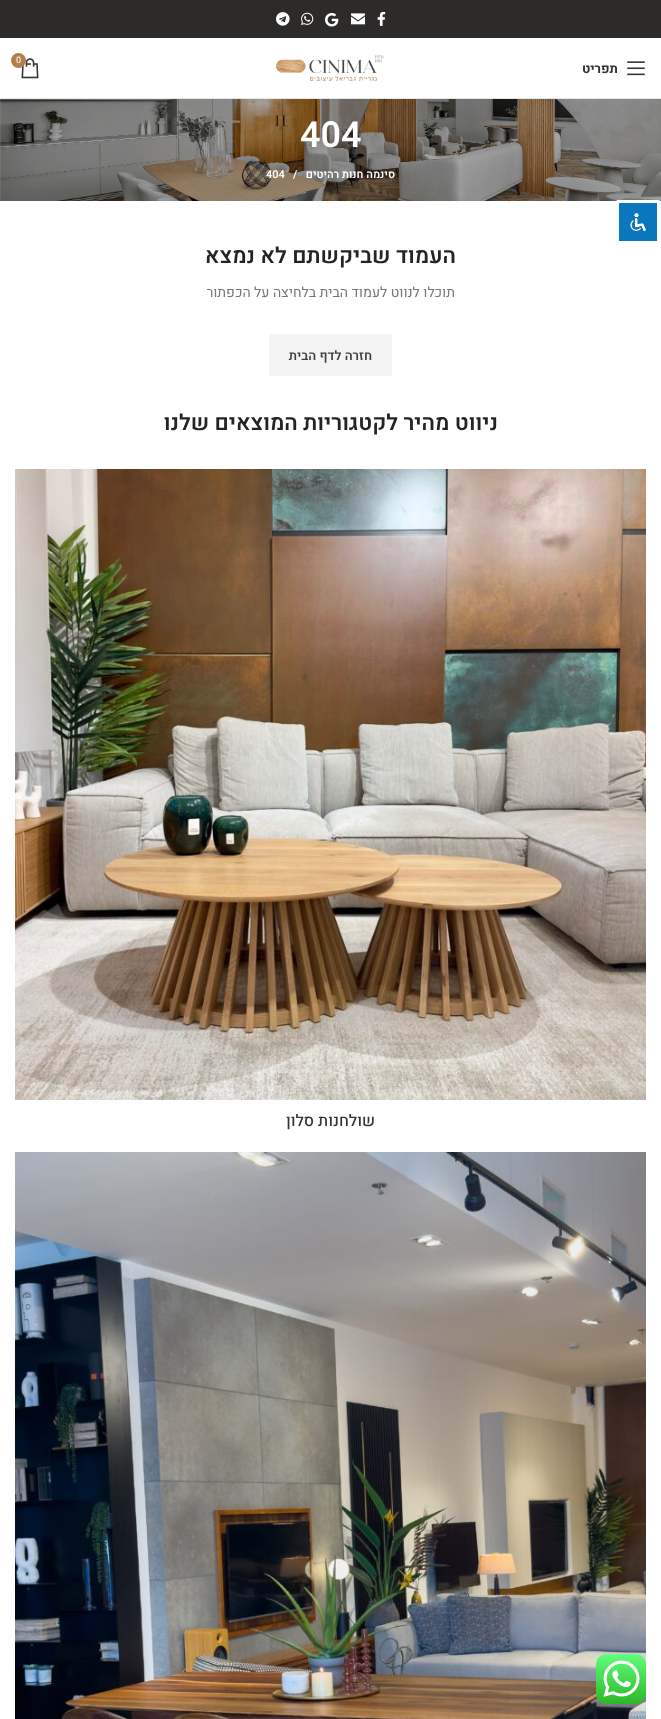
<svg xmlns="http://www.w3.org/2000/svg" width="661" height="1719">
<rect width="100%" height="100%" fill="#fff"/>
<image x="0" y="99" width="661" height="102" href="media/10.png"/>
<rect x="617.5" y="201.5" width="41" height="41" rx="0.5" fill="#0a76be" stroke="#fff" stroke-width="3"/>
<image x="630" y="213" width="16" height="18" href="media/1.png"/>
<rect width="661" height="38" fill="#2d2a2a"/>
<image x="377" y="11" width="9" height="15" href="media/2.png"/>
<image x="351" y="13" width="14" height="12" href="media/3.png"/>
<image x="325" y="13" width="14" height="14" href="media/4.png"/>
<image x="301" y="12" width="13" height="13" href="media/5.png"/>
<image x="276" y="12" width="14" height="14" href="media/6.png"/>
<rect y="98" width="661" height="1" fill="#e6e6e6"/>
<image x="275" y="55" width="109" height="26" href="media/7.png"/>
<image x="21" y="58" width="18" height="21" href="media/8.png"/>
<circle cx="18.5" cy="60.5" r="7.5" fill="#b17f49"/>
<text x="16" y="63" style="font-family:Heebo;font-size:9px;fill:#fff">0</text>
<image x="627" y="61" width="18" height="15" href="media/9.png"/>
<text x="618" y="73" style="font-family:Heebo;font-size:13px;font-weight:bold;direction:rtl;fill:#333">תפריט</text>
<text x="300" y="147" style="font-family:Heebo;font-size:36px;font-weight:600;fill:#fff">404</text>
<text x="395" y="178" style="font-family:Heebo;font-size:11px;font-weight:600;direction:rtl;fill:#fff">סינמה חנות רהיטים</text>
<text x="293" y="178" style="font-family:Heebo;font-size:11px;font-weight:600;fill:#fff">/</text>
<text x="266" y="178" style="font-family:Heebo;font-size:11px;font-weight:600;fill:#fff">404</text>
<text x="456" y="263" style="font-family:Heebo;font-size:22px;font-weight:600;direction:rtl;fill:#242424">העמוד שביקשתם לא נמצא</text>
<text x="455" y="297" style="font-family:Heebo;font-size:14px;direction:rtl;fill:#777">תוכלו לנווט לעמוד הבית בלחיצה על הכפתור</text>
<rect x="269" y="334" width="123" height="42" fill="#f3f3f3"/>
<text x="372" y="360" style="font-family:Heebo;font-size:13px;font-weight:600;direction:rtl;fill:#3e3e3e">חזרה לדף הבית</text>
<text x="498" y="430" style="font-family:Heebo;font-size:22px;font-weight:600;direction:rtl;fill:#242424">ניווט מהיר לקטגוריות המוצאים שלנו</text>
<image x="15" y="469" width="631" height="631" href="media/11.png"/>
<text x="375" y="1126" style="font-family:Heebo;font-size:16px;font-weight:500;direction:rtl;fill:#333">שולחנות סלון</text>
<image x="15" y="1152" width="631" height="567" href="media/12.png"/>
<image x="596" y="1654" width="50" height="50" href="media/13.png"/>
</svg>
